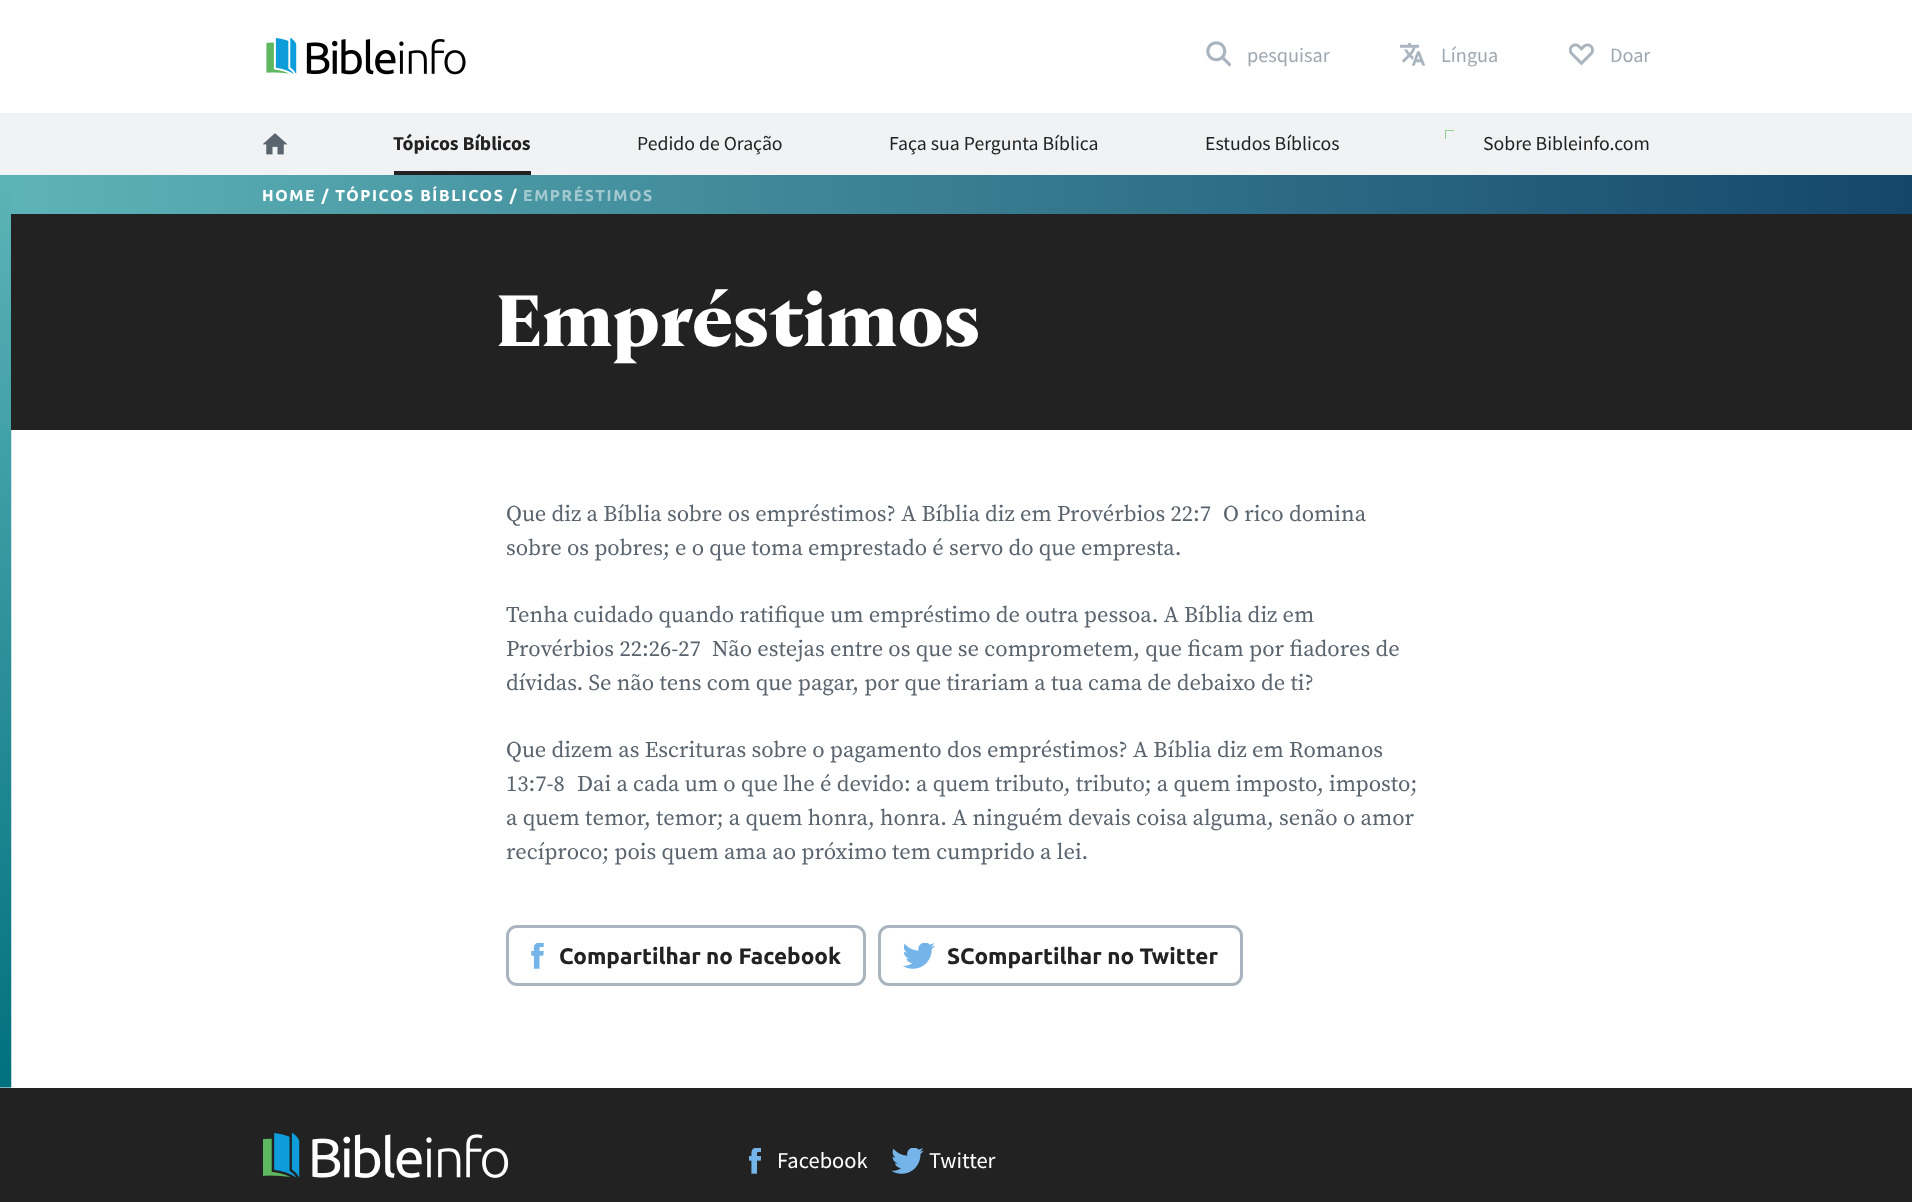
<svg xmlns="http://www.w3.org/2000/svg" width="1912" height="1202">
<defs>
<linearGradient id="g1" gradientUnits="userSpaceOnUse" x1="11" y1="194" x2="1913" y2="194"><stop offset="0" stop-color="#5db4b8"/><stop offset="1" stop-color="#14466a"/></linearGradient>
</defs>
<rect width="100%" height="100%" fill="#fff"/>
<image x="266" y="38" width="200" height="37" href="media/1.png"/>
<image x="1206" y="41" width="25" height="26" href="media/2.png"/>
<text x="1247" y="62" style="font-family:Source Sans Pro;font-size:20.25px;fill:#9ea7b0">pesquisar</text>
<image x="1400" y="43" width="26" height="23" href="media/3.png"/>
<text x="1441" y="62" style="font-family:Source Sans Pro;font-size:20.25px;fill:#9ea7b0">Língua</text>
<image x="1569" y="43" width="25" height="23" href="media/4.png"/>
<text x="1610" y="62" style="font-family:Source Sans Pro;font-size:20.25px;fill:#9ea7b0">Doar</text>
<rect y="113" width="1912" height="62" fill="#f0f2f3"/>
<rect x="1445" y="130" width="1" height="9" fill="#90d091"/>
<image x="263" y="133" width="25" height="22" href="media/5.png"/>
<rect x="394" y="171" width="137" height="4" fill="#222"/>
<text x="393" y="150" style="font-family:Source Sans Pro;font-size:19.75px;font-weight:bold;fill:#222">Tópicos Bíblicos</text>
<text x="637" y="150" style="font-family:Source Sans Pro;font-size:19.75px;fill:#222">Pedido de Oração</text>
<text x="889" y="150" style="font-family:Source Sans Pro;font-size:19.75px;fill:#222">Faça sua Pergunta Bíblica</text>
<text x="1205" y="150" style="font-family:Source Sans Pro;font-size:19.75px;fill:#222">Estudos Bíblicos</text>
<rect x="1445" y="130" width="9" height="1" fill="#90d091"/>
<rect x="1445" y="130" width="1" height="1" fill="#7dca7d"/>
<text x="1483" y="150" style="font-family:Source Sans Pro;font-size:19.75px;fill:#222">Sobre Bibleinfo.com</text>
<image x="0" y="175" width="12" height="913" href="media/6.png"/>
<rect x="11" y="214" width="1901" height="216" fill="#222"/>
<rect x="11" y="175" width="1901" height="39" fill="url(#g1)"/>
<text x="262" y="201" style="font-family:Ubuntu;font-size:15.75px;font-weight:bold;letter-spacing:1.6px;fill:#fff">HOME / TÓPICOS BÍBLICOS /</text>
<text x="523" y="201" style="font-family:Ubuntu;font-size:15.75px;font-weight:bold;letter-spacing:1.6px;fill:#a3c9d0">EMPRÉSTIMOS</text>
<text x="496" y="346" style="font-family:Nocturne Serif;font-size:72px;font-weight:bold;fill:#fff">Empréstimos</text>
<text x="506" y="521" style="font-family:Source Serif Pro;font-size:22.5px;fill:#5a646e">Que diz a Bíblia sobre os empréstimos? A Bíblia diz em Provérbios 22:7</text>
<text x="1223" y="521" style="font-family:Source Serif Pro;font-size:22.5px;fill:#5a646e">O rico domina</text>
<text x="506" y="555" style="font-family:Source Serif Pro;font-size:22.5px;fill:#5a646e">sobre os pobres; e o que toma emprestado é servo do que empresta.</text>
<text x="506" y="622" style="font-family:Source Serif Pro;font-size:22.5px;fill:#5a646e">Tenha cuidado quando ratifique um empréstimo de outra pessoa. A Bíblia diz em</text>
<text x="506" y="656" style="font-family:Source Serif Pro;font-size:22.5px;fill:#5a646e">Provérbios 22:26-27</text>
<text x="712" y="656" style="font-family:Source Serif Pro;font-size:22.5px;fill:#5a646e">Não estejas entre os que se comprometem, que ficam por fiadores de</text>
<text x="506" y="690" style="font-family:Source Serif Pro;font-size:22.5px;fill:#5a646e">dívidas. Se não tens com que pagar, por que tirariam a tua cama de debaixo de ti?</text>
<text x="506" y="757" style="font-family:Source Serif Pro;font-size:22.5px;fill:#5a646e">Que dizem as Escrituras sobre o pagamento dos empréstimos? A Bíblia diz em Romanos</text>
<text x="506" y="791" style="font-family:Source Serif Pro;font-size:22.5px;fill:#5a646e">13:7-8</text>
<text x="577" y="791" style="font-family:Source Serif Pro;font-size:22.5px;fill:#5a646e">Dai a cada um o que lhe é devido: a quem tributo, tributo; a quem imposto, imposto;</text>
<text x="506" y="825" style="font-family:Source Serif Pro;font-size:22.5px;fill:#5a646e">a quem temor, temor; a quem honra, honra. A ninguém devais coisa alguma, senão o amor</text>
<text x="506" y="859" style="font-family:Source Serif Pro;font-size:22.5px;fill:#5a646e">recíproco; pois quem ama ao próximo tem cumprido a lei.</text>
<rect x="507.5" y="926.5" width="357" height="58" rx="9.5" fill="none" stroke="#aab4be" stroke-width="3"/>
<image x="531" y="943" width="13" height="26" href="media/7.png"/>
<text x="559" y="964" style="font-family:Ubuntu;font-size:22.5px;font-weight:bold;fill:#222">Compartilhar no Facebook</text>
<rect x="879.5" y="926.5" width="362" height="58" rx="9.5" fill="none" stroke="#aab4be" stroke-width="3"/>
<image x="903" y="943" width="32" height="26" href="media/8.png"/>
<text x="947" y="964" style="font-family:Ubuntu;font-size:22.5px;font-weight:bold;fill:#222">SCompartilhar no Twitter</text>
<rect y="1088" width="1912" height="114" fill="#222"/>
<image x="263" y="1133" width="246" height="45" href="media/9.png"/>
<image x="749" y="1148" width="12" height="26" href="media/10.png"/>
<text x="777" y="1168" style="font-family:Source Sans Pro;font-size:22.5px;fill:#fff">Facebook</text>
<image x="891" y="1148" width="33" height="26" href="media/11.png"/>
<text x="929" y="1168" style="font-family:Source Sans Pro;font-size:22.5px;fill:#fff">Twitter</text>
</svg>
